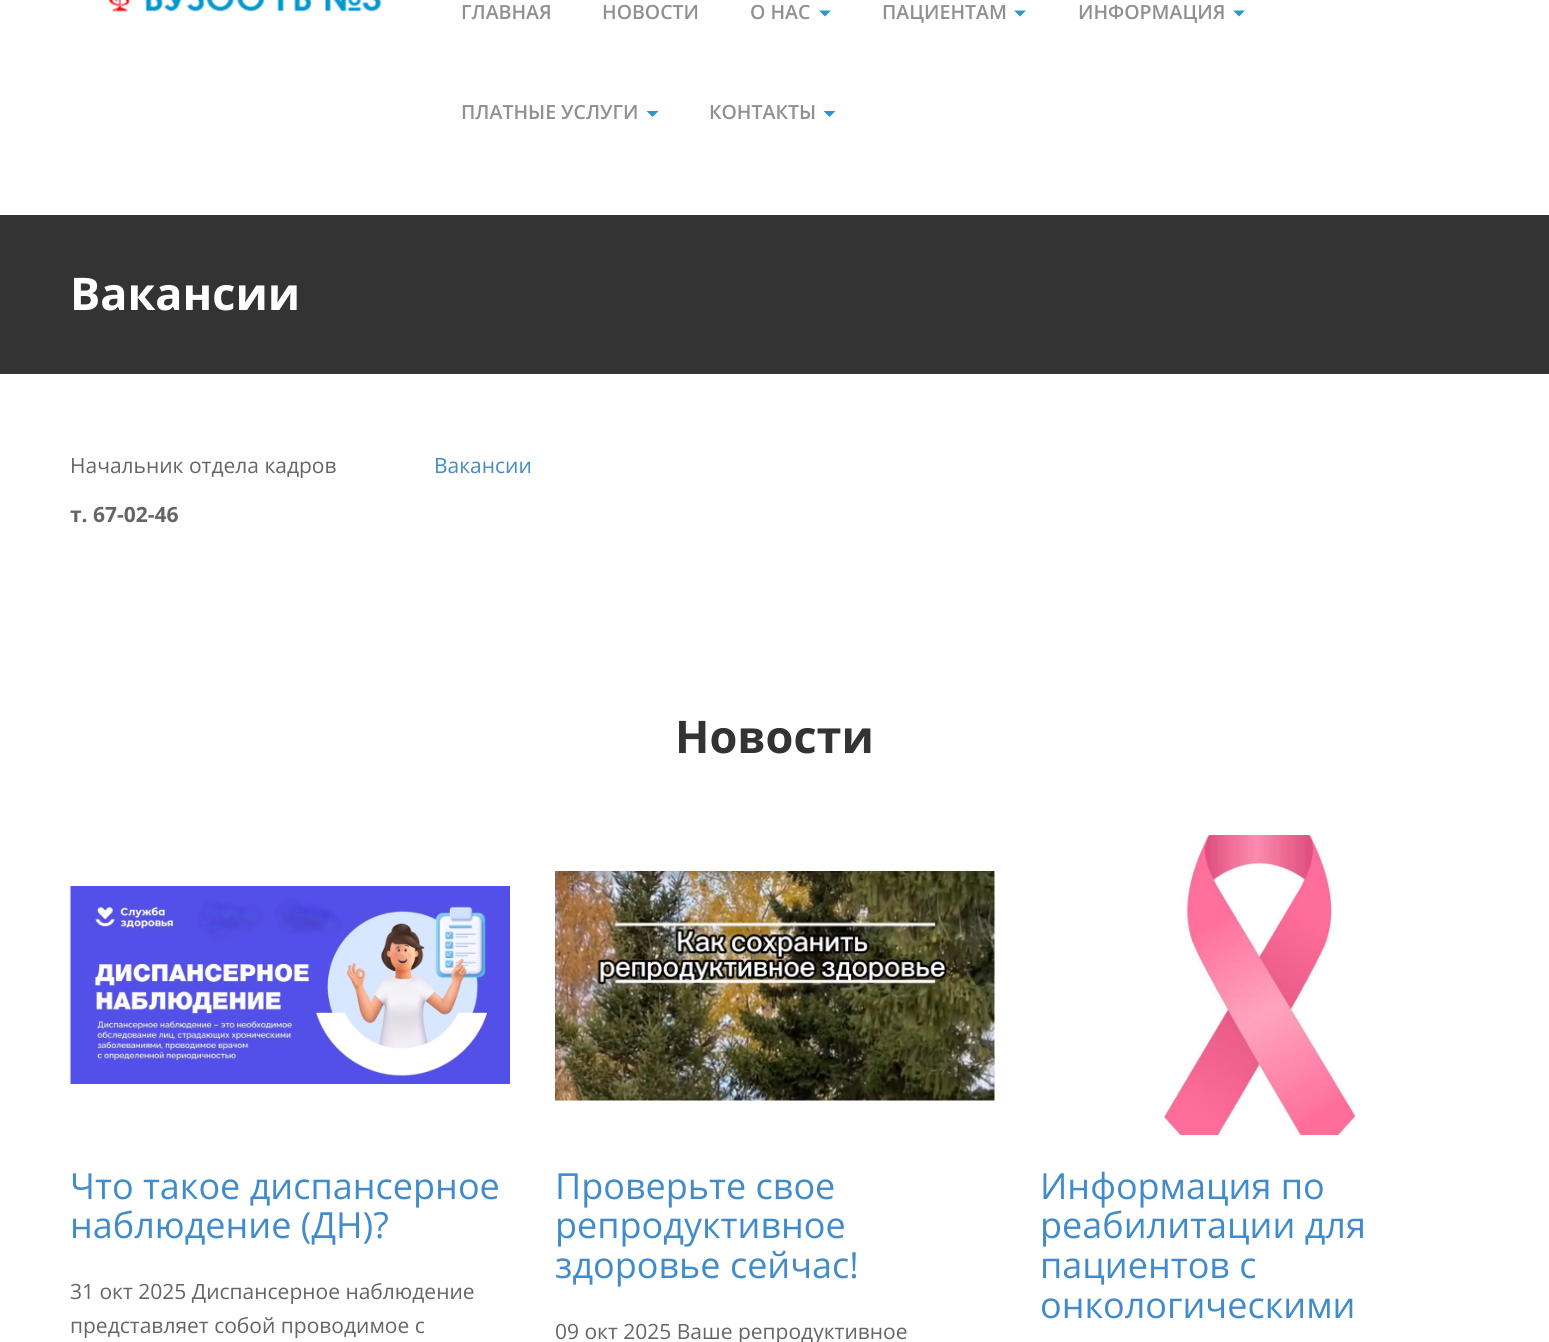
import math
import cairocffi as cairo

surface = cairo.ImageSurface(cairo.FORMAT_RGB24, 1549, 1342)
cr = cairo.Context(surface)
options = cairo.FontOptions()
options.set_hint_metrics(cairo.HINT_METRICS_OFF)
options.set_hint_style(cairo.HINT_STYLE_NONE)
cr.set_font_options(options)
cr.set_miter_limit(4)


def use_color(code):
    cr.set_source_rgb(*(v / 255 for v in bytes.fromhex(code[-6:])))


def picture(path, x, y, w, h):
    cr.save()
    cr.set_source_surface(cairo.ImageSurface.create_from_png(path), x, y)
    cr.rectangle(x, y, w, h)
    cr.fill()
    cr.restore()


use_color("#ffffff")
cr.paint()
picture("img1.png", 108, 0, 274, 13)
cr.select_font_face("Open Sans SemiBold")
cr.set_font_size(19.5)
use_color("#909090")
cr.move_to(461, 19)
cr.show_text("ГЛАВНАЯ")
cr.move_to(602, 19)
cr.show_text("НОВОСТИ")
cr.move_to(750, 19)
cr.show_text("О НАС")
use_color("#2b96cc")
cr.new_path()
cr.move_to(819, 10.5)
cr.line_to(831, 10.5)
cr.line_to(825, 16.5)
cr.close_path()
cr.fill()
use_color("#909090")
cr.move_to(882, 19)
cr.show_text("ПАЦИЕНТАМ")
use_color("#2b96cc")
cr.new_path()
cr.move_to(1014, 10.5)
cr.line_to(1026, 10.5)
cr.line_to(1020, 16.5)
cr.close_path()
cr.fill()
use_color("#909090")
cr.move_to(1078, 19)
cr.show_text("ИНФОРМАЦИЯ")
use_color("#2b96cc")
cr.new_path()
cr.move_to(1233, 10.5)
cr.line_to(1245, 10.5)
cr.line_to(1239, 16.5)
cr.close_path()
cr.fill()
use_color("#909090")
cr.move_to(461, 119)
cr.show_text("ПЛАТНЫЕ УСЛУГИ")
use_color("#2b96cc")
cr.new_path()
cr.move_to(646.5, 111)
cr.line_to(658.5, 111)
cr.line_to(652.5, 117)
cr.close_path()
cr.fill()
use_color("#909090")
cr.move_to(709, 119)
cr.show_text("КОНТАКТЫ")
use_color("#2b96cc")
cr.new_path()
cr.move_to(823.5, 111)
cr.line_to(835.5, 111)
cr.line_to(829.5, 117)
cr.close_path()
cr.fill()
use_color("#333333")
cr.rectangle(0, 215, 1549, 159)
cr.fill()
cr.select_font_face("Open Sans", cairo.FONT_SLANT_NORMAL, cairo.FONT_WEIGHT_BOLD)
cr.set_font_size(45)
use_color("#ffffff")
cr.move_to(70, 310)
cr.show_text("Вакансии")
cr.select_font_face("Open Sans")
cr.set_font_size(21)
use_color("#656565")
cr.move_to(70, 473)
cr.show_text("Начальник отдела кадров")
cr.select_font_face("Open Sans", cairo.FONT_SLANT_NORMAL, cairo.FONT_WEIGHT_BOLD)
cr.move_to(70, 522)
cr.show_text("т. 67-02-46")
cr.select_font_face("Open Sans")
use_color("#428bca")
cr.move_to(434, 473)
cr.show_text("Вакансии")
cr.select_font_face("Open Sans", cairo.FONT_SLANT_NORMAL, cairo.FONT_WEIGHT_BOLD)
cr.set_font_size(45)
use_color("#333333")
cr.move_to(675, 753)
cr.show_text("Новости")
picture("img2.png", 70, 886, 440, 198)
cr.select_font_face("Open Sans")
cr.set_font_size(36)
use_color("#428bca")
cr.move_to(70, 1199)
cr.show_text("Что такое диспансерное")
cr.move_to(70, 1238)
cr.show_text("наблюдение (ДН)?")
cr.set_font_size(21)
use_color("#656565")
cr.move_to(70, 1299)
cr.show_text("31 окт 2025 Диспансерное наблюдение")
cr.move_to(70, 1333)
cr.show_text("представляет собой проводимое с")
picture("img3.png", 555, 871, 440, 230)
cr.set_font_size(36)
use_color("#428bca")
cr.move_to(555, 1199)
cr.show_text("Проверьте свое")
cr.move_to(555, 1238)
cr.show_text("репродуктивное")
cr.move_to(555, 1278)
cr.show_text("здоровье сейчас!")
cr.set_font_size(21)
use_color("#656565")
cr.move_to(555, 1339)
cr.show_text("09 окт 2025 Ваше репродуктивное")
picture("img4.png", 1161, 835, 195, 300)
cr.set_font_size(36)
use_color("#428bca")
cr.move_to(1040, 1199)
cr.show_text("Информация по")
cr.move_to(1040, 1238)
cr.show_text("реабилитации для")
cr.move_to(1040, 1278)
cr.show_text("пациентов с")
cr.move_to(1040, 1318)
cr.show_text("онкологическими")
surface.write_to_png("result.png")
